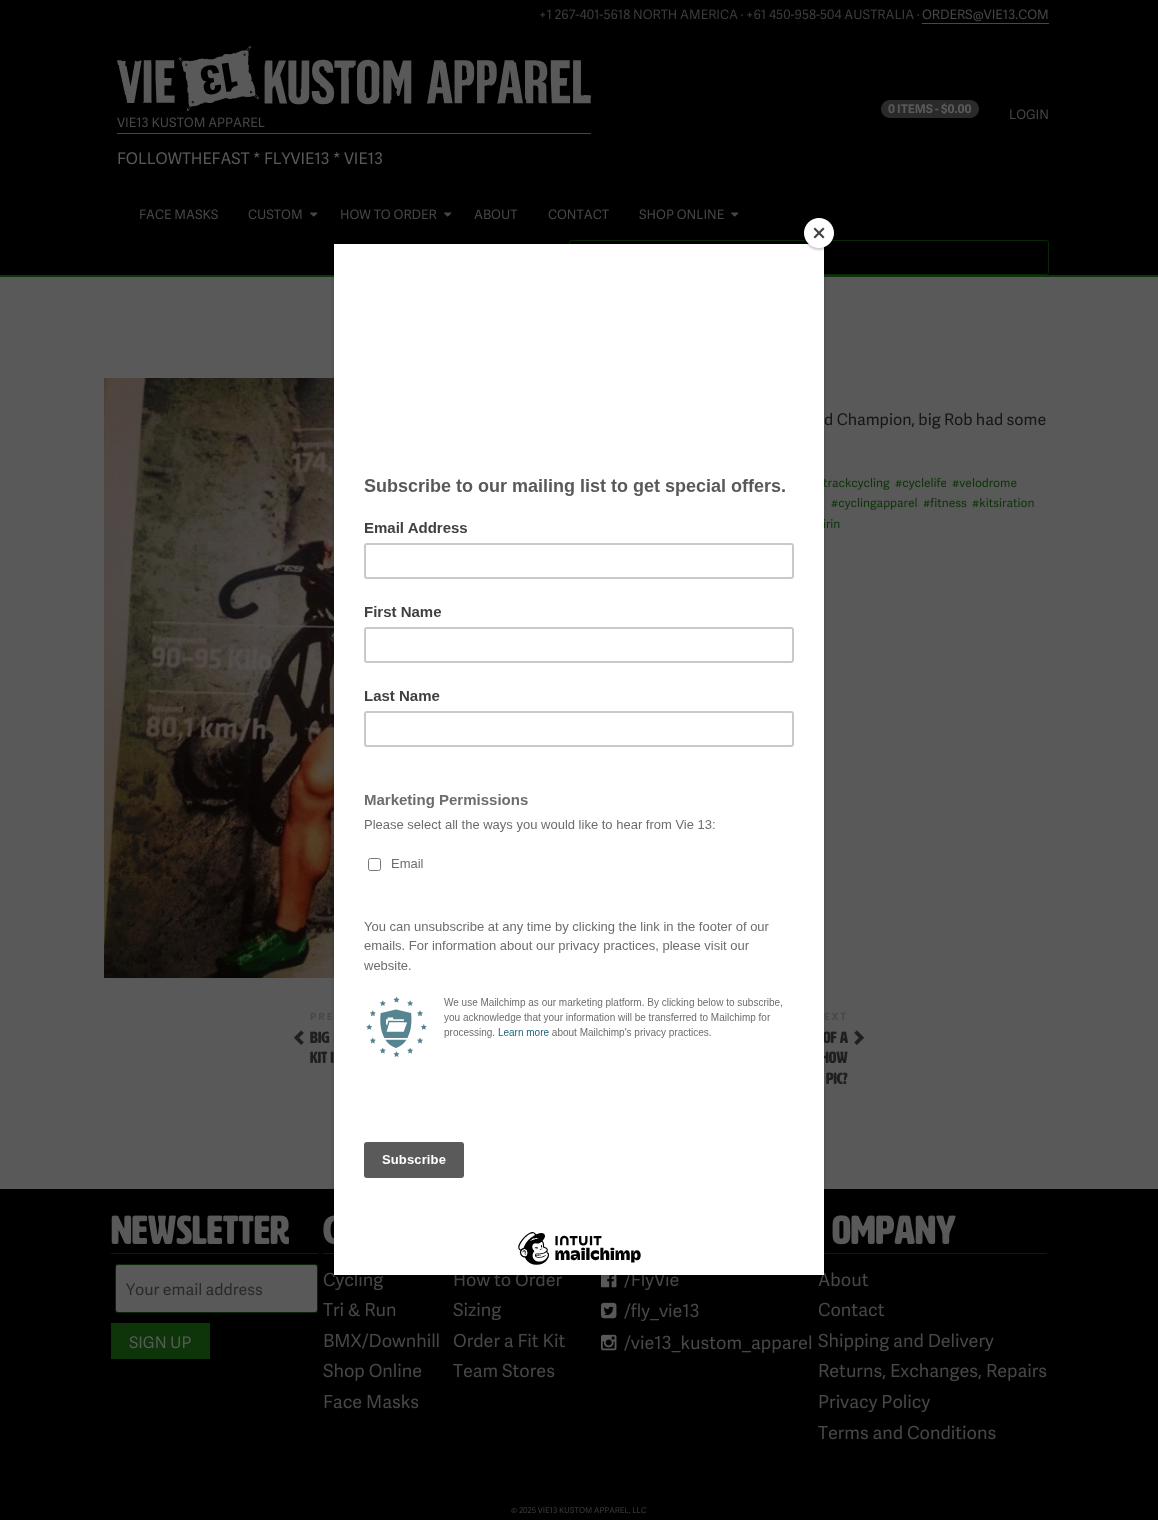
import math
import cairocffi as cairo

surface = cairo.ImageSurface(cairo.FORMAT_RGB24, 1158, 1520)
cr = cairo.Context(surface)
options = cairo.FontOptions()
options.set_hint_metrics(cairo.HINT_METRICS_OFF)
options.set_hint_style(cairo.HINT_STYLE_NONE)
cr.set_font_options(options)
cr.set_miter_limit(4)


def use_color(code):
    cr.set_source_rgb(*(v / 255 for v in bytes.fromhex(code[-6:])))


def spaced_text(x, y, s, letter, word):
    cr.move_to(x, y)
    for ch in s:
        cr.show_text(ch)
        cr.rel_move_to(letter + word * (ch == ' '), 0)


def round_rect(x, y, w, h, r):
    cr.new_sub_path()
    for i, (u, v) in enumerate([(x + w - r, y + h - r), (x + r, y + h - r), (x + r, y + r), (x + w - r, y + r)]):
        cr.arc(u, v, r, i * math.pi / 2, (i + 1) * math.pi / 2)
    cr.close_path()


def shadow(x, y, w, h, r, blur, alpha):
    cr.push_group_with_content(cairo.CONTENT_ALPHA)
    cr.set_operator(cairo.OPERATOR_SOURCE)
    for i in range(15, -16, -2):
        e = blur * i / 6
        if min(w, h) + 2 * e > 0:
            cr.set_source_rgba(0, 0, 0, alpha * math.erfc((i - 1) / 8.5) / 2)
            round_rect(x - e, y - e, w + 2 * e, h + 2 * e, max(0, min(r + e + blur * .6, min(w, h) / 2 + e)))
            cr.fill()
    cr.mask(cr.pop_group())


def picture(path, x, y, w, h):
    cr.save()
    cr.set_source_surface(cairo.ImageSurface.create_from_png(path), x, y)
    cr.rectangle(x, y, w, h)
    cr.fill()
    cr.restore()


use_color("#595959")
cr.paint()
use_color("#000000")
cr.rectangle(0, 0, 1158, 275)
cr.fill()
use_color("#0d3509")
cr.rectangle(0, 275, 1158, 2)
cr.fill()
cr.select_font_face("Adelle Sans")
cr.set_font_size(13)
use_color("#3c3c3c")
cr.move_to(539, 19)
cr.show_text("+1 267-401-5618 NORTH AMERICA · +61 450-958-504 AUSTRALIA ·")
use_color("#474747")
cr.move_to(922, 19)
cr.show_text("ORDERS@VIE13.COM")
cr.rectangle(922, 23, 127, 1)
cr.fill()
use_color("#2a2a2a")
round_rect(881, 100, 98, 18, 9)
cr.fill()
cr.select_font_face("Adelle Sans", cairo.FONT_SLANT_NORMAL, cairo.FONT_WEIGHT_BOLD)
cr.set_font_size(12)
use_color("#595959")
cr.move_to(888, 113)
cr.show_text("0 ITEMS - $0.00")
cr.select_font_face("Adelle Sans")
cr.set_font_size(13)
use_color("#474747")
cr.move_to(1009, 119)
cr.show_text("LOGIN")
picture("img1.png", 117, 46, 474, 65)
cr.rectangle(117, 133, 474, 1)
cr.fill()
cr.move_to(117, 127)
cr.show_text("VIE13 KUSTOM APPAREL")
cr.set_font_size(16)
use_color("#595959")
cr.move_to(117, 164)
cr.show_text("FOLLOWTHEFAST * FLYVIE13 * VIE13")
cr.set_font_size(13)
use_color("#474747")
cr.move_to(139, 219)
cr.show_text("FACE MASKS")
cr.move_to(248, 219)
cr.show_text("CUSTOM")
picture("img2.png", 310, 212, 8, 5)
cr.move_to(340, 219)
cr.show_text("HOW TO ORDER")
picture("img2.png", 444, 212, 8, 5)
cr.move_to(474, 219)
cr.show_text("ABOUT")
cr.move_to(548, 219)
cr.show_text("CONTACT")
cr.move_to(639, 219)
cr.show_text("SHOP ONLINE")
picture("img2.png", 731, 212, 8, 5)
round_rect(569.5, 240.5, 479, 34, 2.5)
use_color("#092506")
cr.set_line_width(1)
cr.stroke()
picture("img3.png", 104, 378, 230, 600)
cr.set_font_size(16)
use_color("#161616")
cr.move_to(824, 425)
cr.show_text("d Champion, big Rob had some")
cr.set_font_size(12)
use_color("#0d3509")
cr.move_to(823, 487)
cr.show_text("trackcycling")
cr.move_to(895, 487)
cr.show_text("#cyclelife")
cr.move_to(952, 487)
cr.show_text("#velodrome")
cr.move_to(831, 507)
cr.show_text("#cyclingapparel")
cr.move_to(923, 507)
cr.show_text("#fitness")
cr.move_to(972, 507)
cr.show_text("#kitsiration")
cr.move_to(823, 528)
cr.show_text("irin")
cr.select_font_face("Adelle Sans", cairo.FONT_SLANT_NORMAL, cairo.FONT_WEIGHT_BOLD)
cr.set_font_size(10)
use_color("#474747")
spaced_text(310, 1020, "PRE", 2, 0)
picture("img4.png", 293, 1030, 11, 15)
cr.select_font_face("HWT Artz", cairo.FONT_SLANT_NORMAL, cairo.FONT_WEIGHT_BOLD)
cr.set_font_size(16)
use_color("#1f1f1f")
cr.move_to(310, 1043)
cr.show_text("BIG")
cr.move_to(310, 1063)
cr.show_text("KIT I")
cr.select_font_face("Adelle Sans", cairo.FONT_SLANT_NORMAL, cairo.FONT_WEIGHT_BOLD)
cr.set_font_size(10)
use_color("#474747")
spaced_text(824, 1020, "EXT", 2, 0)
cr.select_font_face("HWT Artz", cairo.FONT_SLANT_NORMAL, cairo.FONT_WEIGHT_BOLD)
cr.set_font_size(16)
use_color("#1f1f1f")
cr.move_to(823, 1043)
cr.show_text("OF A")
picture("img5.png", 854, 1030, 11, 15)
cr.move_to(821, 1063)
cr.show_text("HOW")
cr.move_to(826, 1084)
cr.show_text("PIC?")
use_color("#000000")
cr.rectangle(0, 1189, 1158, 331)
cr.fill()
use_color("#161616")
cr.rectangle(111, 1253, 207, 1)
cr.fill()
cr.set_font_size(40)
use_color("#595959")
cr.move_to(111, 1244)
cr.show_text("NEWSLETTER")
round_rect(115.5, 1264.5, 202, 48, 2.5)
cr.fill_preserve()
use_color("#092506")
cr.stroke()
cr.select_font_face("Adelle Sans")
cr.set_font_size(16)
use_color("#292929")
cr.move_to(126, 1295)
cr.show_text("Your email address")
use_color("#0d3509")
cr.rectangle(111, 1323, 99, 36)
cr.fill()
use_color("#595959")
cr.move_to(129, 1348)
cr.show_text("SIGN UP")
use_color("#161616")
cr.rectangle(323, 1253, 11, 1)
cr.fill()
cr.select_font_face("HWT Artz", cairo.FONT_SLANT_NORMAL, cairo.FONT_WEIGHT_BOLD)
cr.set_font_size(40)
use_color("#595959")
cr.move_to(323, 1244)
cr.show_text("C")
cr.select_font_face("Adelle Sans")
cr.set_font_size(18)
use_color("#474747")
cr.move_to(323, 1286)
cr.show_text("Cycling")
cr.move_to(323, 1316)
cr.show_text("Tri & Run")
cr.move_to(323, 1347)
cr.show_text("BMX/Downhill")
cr.move_to(323, 1377)
cr.show_text("Shop Online")
cr.move_to(323, 1408)
cr.show_text("Face Masks")
cr.move_to(453, 1286)
cr.show_text("How to Order")
cr.move_to(453, 1316)
cr.show_text("Sizing")
cr.move_to(453, 1347)
cr.show_text("Order a Fit Kit")
cr.move_to(453, 1377)
cr.show_text("Team Stores")
picture("img6.png", 601, 1275, 16, 13)
cr.move_to(624, 1286)
cr.show_text("/FlyVie")
picture("img7.png", 601, 1302, 16, 17)
cr.move_to(624, 1317)
cr.show_text("/fly_vie13")
picture("img8.png", 601, 1334, 16, 17)
cr.move_to(624, 1349)
cr.show_text("/vie13_kustom_apparel")
use_color("#161616")
cr.rectangle(818, 1253, 229, 1)
cr.fill()
cr.select_font_face("HWT Artz", cairo.FONT_SLANT_NORMAL, cairo.FONT_WEIGHT_BOLD)
cr.set_font_size(40)
use_color("#595959")
cr.move_to(832, 1244)
cr.show_text("OMPANY")
cr.select_font_face("Adelle Sans")
cr.set_font_size(18)
use_color("#474747")
cr.move_to(818, 1286)
cr.show_text("About")
cr.move_to(818, 1316)
cr.show_text("Contact")
cr.move_to(818, 1347)
cr.show_text("Shipping and Delivery")
cr.move_to(818, 1377)
cr.show_text("Returns, Exchanges, Repairs")
cr.move_to(818, 1408)
cr.show_text("Privacy Policy")
cr.move_to(818, 1439)
cr.show_text("Terms and Conditions")
cr.set_font_size(8)
use_color("#3c3c3c")
cr.move_to(511, 1513)
cr.show_text("© 2025 VIE13 KUSTOM APPAREL, LLC")
cr.save()
cr.set_fill_rule(cairo.FILL_RULE_EVEN_ODD)
cr.new_path()
cr.move_to(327, 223)
cr.line_to(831, 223)
cr.line_to(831, 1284)
cr.line_to(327, 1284)
cr.close_path()
cr.move_to(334, 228)
cr.line_to(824, 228)
cr.line_to(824, 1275)
cr.line_to(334, 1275)
cr.close_path()
cr.clip()
use_color("#000000")
shadow(334, 230, 490, 1047, 0, 2, 0.2)
cr.restore()
picture("img9.png", 334, 244, 490, 1031)
use_color("#000000")
shadow(804, 220, 30, 30, 15, 1, 0.2)
use_color("#ffffff")
cr.arc(819, 233, 15, 0, 2 * math.pi)
cr.fill()
use_color("#414141")
cr.new_path()
cr.move_to(823, 227.5)
cr.line_to(824.5, 229)
cr.line_to(815, 238.5)
cr.line_to(813.5, 237)
cr.close_path()
cr.fill()
cr.new_path()
cr.move_to(813.5, 229)
cr.line_to(815, 227.5)
cr.line_to(824.5, 237)
cr.line_to(823, 238.5)
cr.close_path()
cr.fill()
surface.write_to_png("result.png")
